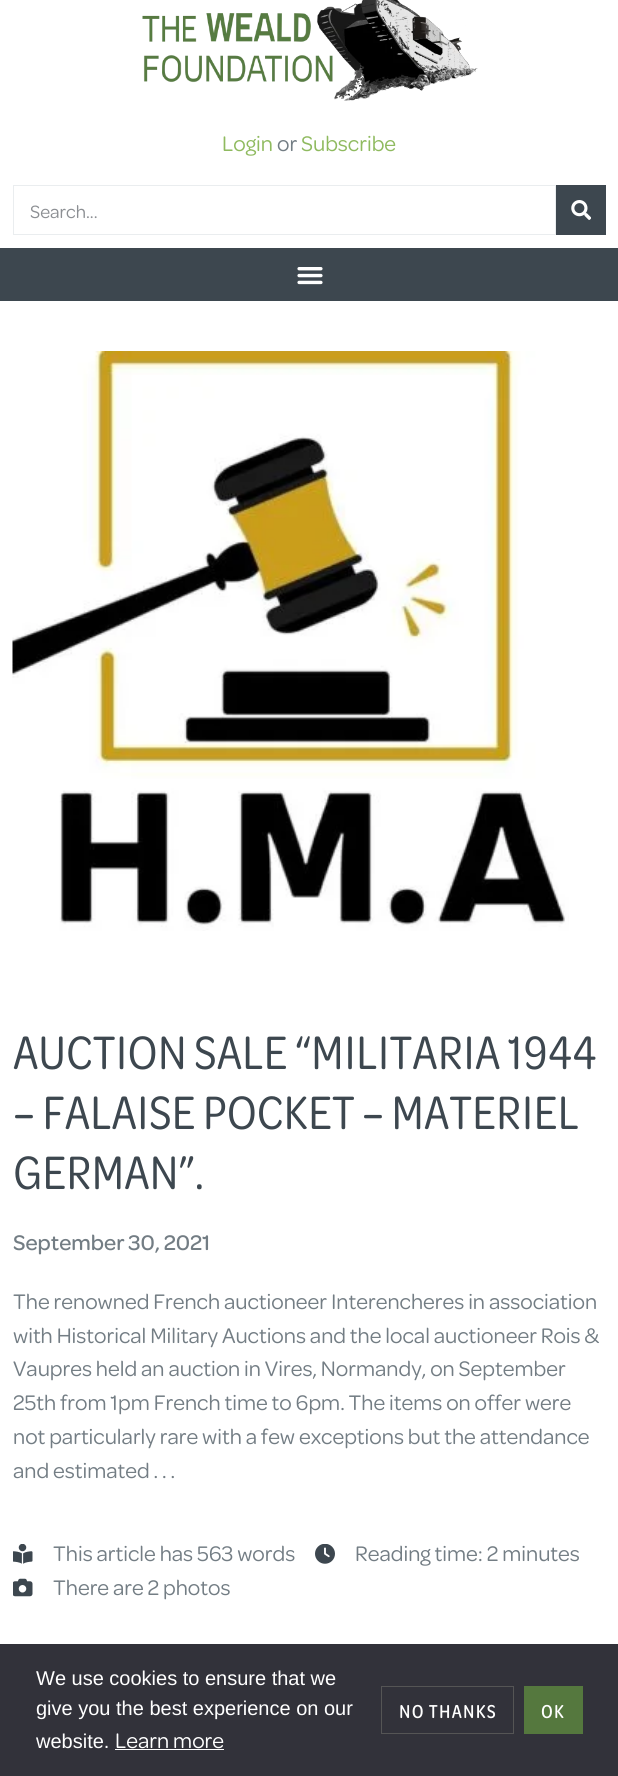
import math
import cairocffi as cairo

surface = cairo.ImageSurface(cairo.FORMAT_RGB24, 618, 1776)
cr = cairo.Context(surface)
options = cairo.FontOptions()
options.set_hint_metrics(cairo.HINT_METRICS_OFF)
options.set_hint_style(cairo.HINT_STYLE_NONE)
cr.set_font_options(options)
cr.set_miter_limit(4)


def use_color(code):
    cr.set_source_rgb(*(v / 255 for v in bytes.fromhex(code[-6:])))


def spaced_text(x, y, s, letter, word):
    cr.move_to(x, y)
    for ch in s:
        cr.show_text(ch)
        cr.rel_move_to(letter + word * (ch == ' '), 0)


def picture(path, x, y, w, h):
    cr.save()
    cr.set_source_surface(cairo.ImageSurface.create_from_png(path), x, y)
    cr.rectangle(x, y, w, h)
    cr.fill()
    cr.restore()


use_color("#ffffff")
cr.paint()
picture("img1.png", 142, 0, 336, 101)
cr.select_font_face("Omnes")
cr.set_font_size(22.5)
use_color("#8fba5f")
cr.move_to(222, 151)
cr.show_text("Login")
use_color("#737d84")
cr.move_to(277, 151)
cr.show_text("or")
use_color("#8fba5f")
cr.move_to(301, 151)
cr.show_text("Subscribe")
cr.rectangle(13.5, 185.5, 542, 49)
use_color("#eaedef")
cr.set_line_width(1)
cr.stroke()
cr.set_font_size(19)
use_color("#8c8f93")
cr.move_to(30, 218)
cr.show_text("Search...")
use_color("#3d474f")
cr.rectangle(556, 185, 50, 50)
cr.fill()
picture("img2.png", 571, 200, 20, 20)
cr.rectangle(0, 248, 618, 53)
cr.fill()
picture("img3.png", 297, 267, 26, 18)
picture("img4.png", 12, 351, 557, 580)
cr.select_font_face("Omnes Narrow")
cr.set_font_size(50)
cr.move_to(13, 1069)
cr.show_text("AUCTION SALE “MILITARIA 1944")
cr.move_to(13, 1129)
cr.show_text("– FALAISE POCKET – MATERIEL")
cr.move_to(13, 1189)
cr.show_text("GERMAN”.")
cr.select_font_face("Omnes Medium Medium")
cr.set_font_size(22.5)
use_color("#737d84")
cr.move_to(13, 1250)
cr.show_text("September 30, 2021")
cr.select_font_face("Omnes")
cr.move_to(13, 1309)
cr.show_text("The renowned French auctioneer Interencheres in association")
cr.move_to(13, 1343)
cr.show_text("with Historical Military Auctions and the local auctioneer Rois &")
cr.move_to(13, 1376)
cr.show_text("Vaupres held an auction in Vires, Normandy, on September")
cr.move_to(13, 1410)
cr.show_text("25th from 1pm French time to 6pm. The items on offer were")
cr.move_to(13, 1444)
cr.show_text("not particularly rare with a few exceptions but the attendance")
cr.move_to(13, 1478)
cr.show_text("and estimated . . .")
picture("img5.png", 13, 1544, 20, 20)
cr.move_to(53, 1561)
cr.show_text("This article has 563 words")
picture("img6.png", 315, 1544, 20, 20)
cr.move_to(355, 1561)
cr.show_text("Reading time: 2 minutes")
picture("img7.png", 13, 1578, 20, 19)
cr.move_to(53, 1595)
cr.show_text("There are 2 photos")
use_color("#32323a")
cr.rectangle(0, 1644, 618, 132)
cr.fill()
cr.select_font_face("Liberation Sans")
cr.set_font_size(20)
use_color("#ffffff")
cr.move_to(36, 1685)
cr.show_text("We use cookies to ensure that we")
cr.move_to(36, 1715)
cr.show_text("give you the best experience on our")
cr.move_to(36, 1748)
cr.show_text("website.")
cr.select_font_face("Omnes")
cr.set_font_size(22.5)
cr.move_to(115, 1748)
cr.show_text("Learn more")
cr.rectangle(115, 1749, 109, 1)
cr.fill()
cr.rectangle(381.5, 1686.5, 132, 47)
use_color("#555555")
cr.stroke()
cr.select_font_face("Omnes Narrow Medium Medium")
cr.set_font_size(20)
use_color("#ffffff")
spaced_text(399, 1718, "NO THANKS", 1.25, 0)
use_color("#55783e")
cr.rectangle(524, 1686, 59, 48)
cr.fill()
use_color("#ffffff")
spaced_text(541, 1718, "OK", 1.25, 0)
surface.write_to_png("result.png")
